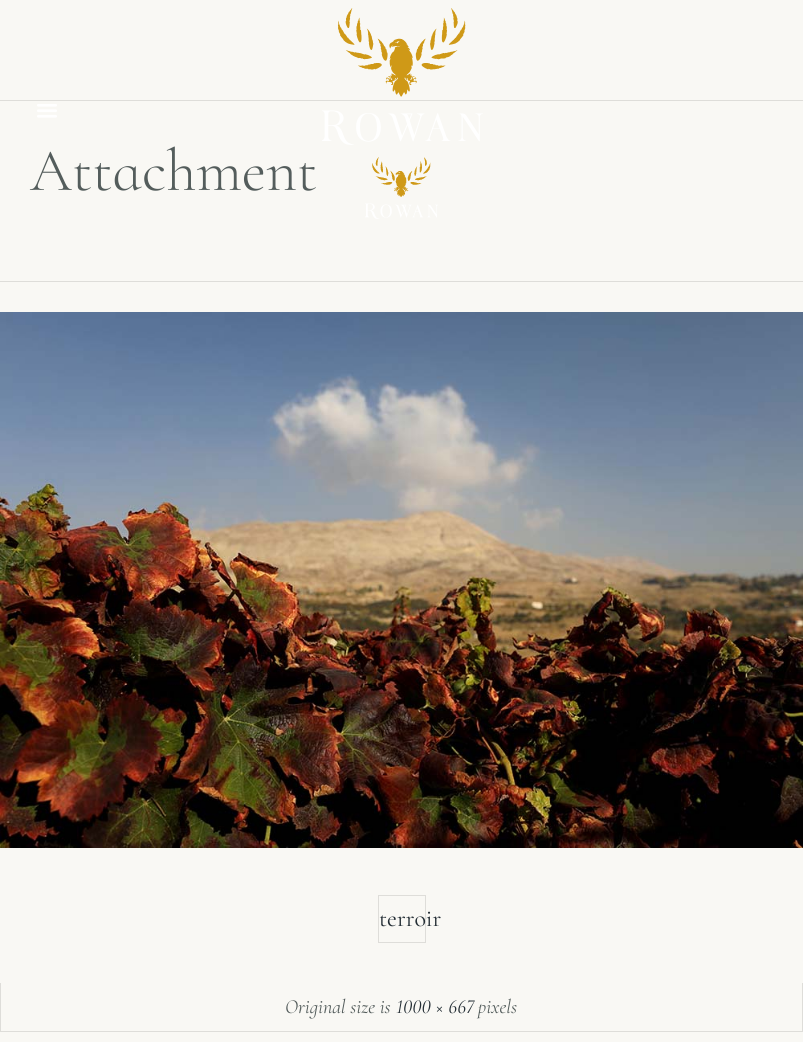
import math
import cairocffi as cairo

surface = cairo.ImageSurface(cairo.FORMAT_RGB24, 803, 1042)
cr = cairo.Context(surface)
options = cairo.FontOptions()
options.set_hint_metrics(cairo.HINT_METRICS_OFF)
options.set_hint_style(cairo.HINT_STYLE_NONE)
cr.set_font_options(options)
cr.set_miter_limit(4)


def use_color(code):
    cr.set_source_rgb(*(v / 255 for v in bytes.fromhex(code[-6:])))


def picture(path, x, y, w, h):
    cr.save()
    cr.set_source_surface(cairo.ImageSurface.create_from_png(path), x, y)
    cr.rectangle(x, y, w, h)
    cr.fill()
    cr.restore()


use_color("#f9f8f4")
cr.paint()
picture("img1.png", 37, 104, 20, 14)
use_color("#deddd9")
cr.rectangle(0, 100, 803, 1)
cr.fill()
picture("img2.png", 322, 8, 161, 137)
picture("img3.png", 365, 157, 73, 62)
cr.rectangle(0, 281, 803, 1)
cr.fill()
cr.select_font_face("Cormorant Infant Light")
cr.set_font_size(60)
use_color("#545d5c")
cr.move_to(30, 190)
cr.show_text("Attachment")
picture("img4.png", 0, 312, 803, 536)
cr.rectangle(378.5, 895.5, 47, 47)
use_color("#deddd9")
cr.set_line_width(1)
cr.stroke()
cr.select_font_face("Cormorant Infant")
cr.set_font_size(24)
use_color("#242e35")
cr.move_to(379, 926)
cr.show_text("terroir")
use_color("#deddd9")
cr.rectangle(802, 983, 1, 49)
cr.fill()
cr.rectangle(0, 1031, 803, 1)
cr.fill()
cr.rectangle(0, 983, 1, 49)
cr.fill()
cr.select_font_face("Cormorant Infant", cairo.FONT_SLANT_ITALIC)
cr.set_font_size(20)
use_color("#545d5c")
cr.move_to(285, 1013)
cr.show_text("Original size is")
use_color("#242e35")
cr.move_to(396, 1013)
cr.show_text("1000 × 667")
use_color("#545d5c")
cr.move_to(478, 1013)
cr.show_text("pixels")
surface.write_to_png("result.png")
